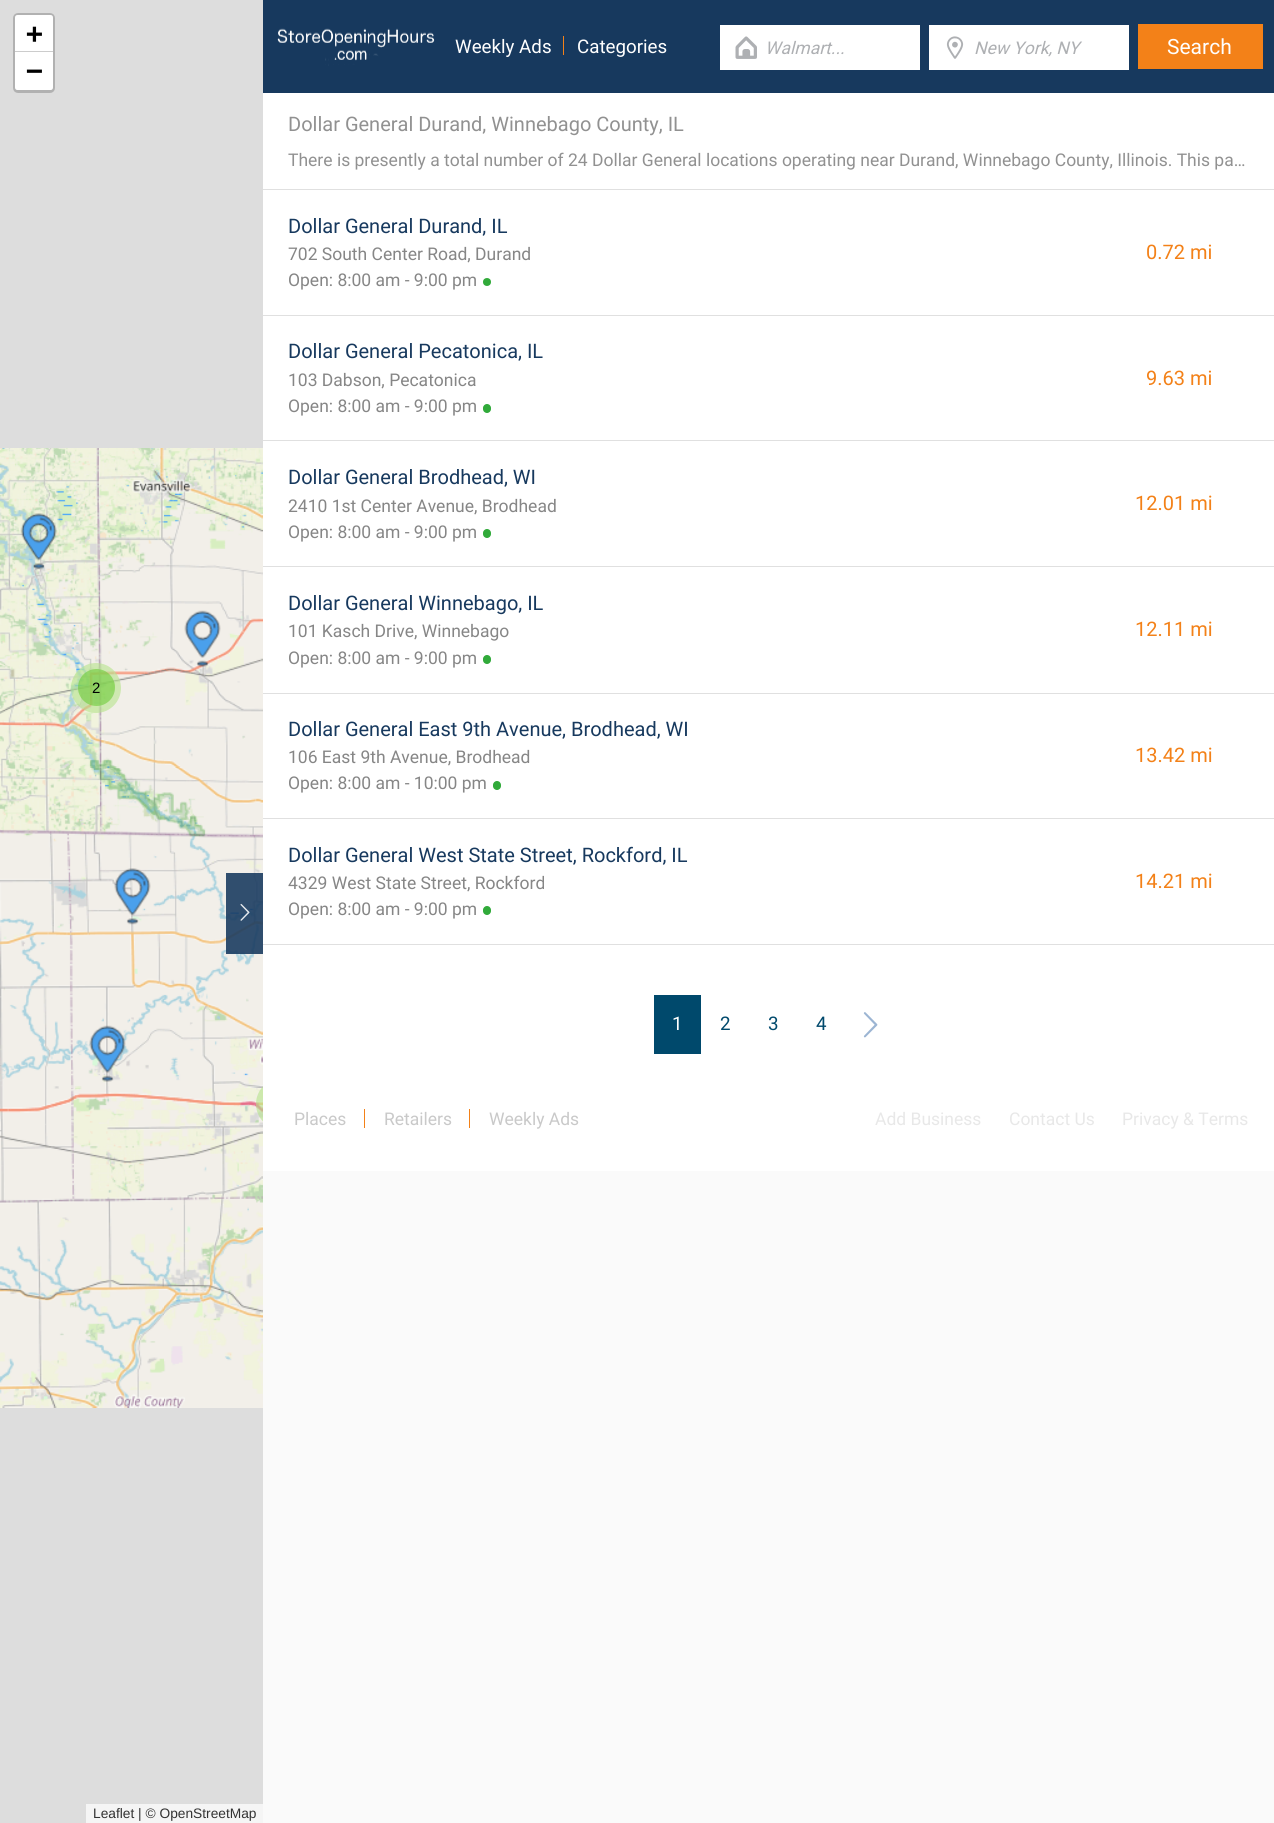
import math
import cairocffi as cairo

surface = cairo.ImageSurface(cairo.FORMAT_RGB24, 1274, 1823)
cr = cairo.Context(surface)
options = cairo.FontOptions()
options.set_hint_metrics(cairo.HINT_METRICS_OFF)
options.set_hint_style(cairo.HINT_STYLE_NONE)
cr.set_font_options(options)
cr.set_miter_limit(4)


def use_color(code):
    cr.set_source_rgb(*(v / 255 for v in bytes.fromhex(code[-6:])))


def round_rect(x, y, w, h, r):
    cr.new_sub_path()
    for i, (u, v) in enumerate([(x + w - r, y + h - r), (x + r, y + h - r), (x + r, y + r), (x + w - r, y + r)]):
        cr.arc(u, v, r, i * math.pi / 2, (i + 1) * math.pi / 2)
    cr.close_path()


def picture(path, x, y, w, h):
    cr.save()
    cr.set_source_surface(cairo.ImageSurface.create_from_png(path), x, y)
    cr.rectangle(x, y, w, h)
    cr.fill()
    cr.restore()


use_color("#fafafa")
cr.paint()
use_color("#dddddd")
cr.rectangle(0, 0, 263, 1823)
cr.fill()
round_rect(14.5, 14.5, 39, 77, 3.5)
use_color("#b1b1b1")
cr.set_line_width(3)
cr.stroke()
use_color("#ffffff")
cr.new_path()
cr.move_to(17.5, 15)
cr.line_to(50.5, 15)
cr.curve_to(52, 15, 53, 16, 53, 17.5)
cr.line_to(53, 53)
cr.line_to(15, 53)
cr.line_to(15, 17.5)
cr.curve_to(15, 16, 16, 15, 17.5, 15)
cr.close_path()
cr.fill()
use_color("#cccccc")
cr.rectangle(15, 51, 38, 1)
cr.fill()
cr.select_font_face("DejaVu Sans Mono", cairo.FONT_SLANT_NORMAL, cairo.FONT_WEIGHT_BOLD)
cr.set_font_size(28)
use_color("#000000")
cr.move_to(26, 43)
cr.show_text("+")
use_color("#ffffff")
cr.new_path()
cr.move_to(15, 53)
cr.line_to(53, 53)
cr.line_to(53, 87.5)
cr.curve_to(53, 89, 52, 90, 50.5, 90)
cr.line_to(17.5, 90)
cr.curve_to(16, 90, 15, 89, 15, 87.5)
cr.close_path()
cr.fill()
use_color("#000000")
cr.move_to(26, 80)
cr.show_text("−")
use_color("#f5f5f5")
cr.rectangle(86, 1804, 177, 19)
cr.fill()
cr.select_font_face("Liberation Sans")
cr.set_font_size(13.75)
use_color("#333333")
cr.move_to(93, 1818)
cr.show_text("Leaflet | © OpenStreetMap")
picture("img1.png", 0, 448, 164, 320)
picture("img2.png", 164, 448, 99, 320)
picture("img3.png", 0, 768, 164, 320)
picture("img4.png", 164, 768, 99, 320)
picture("img5.png", 0, 1088, 164, 320)
picture("img6.png", 164, 1088, 99, 320)
picture("img7.png", 20, 513, 37, 57)
picture("img8.png", 184, 610, 37, 57)
cr.set_source_rgba(0.71, 0.886, 0.549, 0.6)
cr.arc(96, 688, 25, 0, 2 * math.pi)
cr.fill()
cr.set_source_rgba(0.431, 0.8, 0.224, 0.6)
cr.arc(96.5, 687.5, 18.5, 0, 2 * math.pi)
cr.fill()
cr.set_font_size(15)
use_color("#000000")
cr.move_to(92, 693)
cr.show_text("2")
picture("img9.png", 114, 868, 37, 57)
picture("img10.png", 89, 1025, 37, 57)
cr.set_source_rgba(0.71, 0.886, 0.549, 0.6)
cr.new_path()
cr.move_to(281, 1079)
cr.line_to(263, 1079)
cr.line_to(263, 1129)
cr.line_to(281, 1129)
cr.curve_to(267, 1129, 256, 1118, 256, 1104)
cr.curve_to(256, 1090, 267, 1079, 281, 1079)
cr.close_path()
cr.fill()
use_color("#17395e")
cr.rectangle(263, 0, 1011, 93)
cr.fill()
picture("img11.png", 277, 28, 158, 38)
cr.select_font_face("Roboto")
cr.set_font_size(18.75)
use_color("#ffffff")
cr.move_to(455, 53)
cr.show_text("Weekly Ads")
use_color("#f38118")
cr.rectangle(563, 36, 1, 19)
cr.fill()
use_color("#ffffff")
cr.move_to(577, 53)
cr.show_text("Categories")
cr.rectangle(720, 25, 200, 45)
cr.fill()
picture("img12.png", 735, 36, 22, 23)
cr.select_font_face("Roboto", cairo.FONT_SLANT_ITALIC)
cr.set_font_size(17.5)
use_color("#aeb0b3")
cr.move_to(765, 54)
cr.show_text("Walmart...")
use_color("#ffffff")
cr.rectangle(929, 25, 200, 45)
cr.fill()
picture("img13.png", 946, 36, 18, 23)
use_color("#aeb0b3")
cr.move_to(974, 54)
cr.show_text("New York, NY")
use_color("#f38118")
cr.rectangle(1138, 24, 125, 45)
cr.fill()
cr.select_font_face("Roboto")
cr.set_font_size(21)
use_color("#ffffff")
cr.move_to(1167, 54)
cr.show_text("Search")
cr.rectangle(263, 93, 1011, 1078)
cr.fill()
cr.set_source_rgba(0.09, 0.224, 0.369, 0.88)
cr.rectangle(226, 873, 37, 81)
cr.fill()
picture("img14.png", 240, 903, 10, 18)
use_color("#e0e0e0")
cr.rectangle(263, 189, 1011, 1)
cr.fill()
cr.set_font_size(20)
use_color("#919191")
cr.move_to(288, 131)
cr.show_text("Dollar General Durand, Winnebago County, IL")
cr.set_font_size(17.5)
cr.move_to(288, 166)
cr.show_text("There is presently a total number of 24 Dollar General locations operating near Durand, Winnebago County, Illinois. This pa…")
use_color("#e0e0e0")
cr.rectangle(263, 315, 1011, 1)
cr.fill()
cr.set_font_size(20)
use_color("#17395e")
cr.move_to(288, 233)
cr.show_text("Dollar General Durand, IL")
cr.set_font_size(17.5)
use_color("#868686")
cr.move_to(288, 260)
cr.show_text("702 South Center Road, Durand")
cr.set_font_size(20)
use_color("#f38118")
cr.move_to(1146, 259)
cr.show_text("0.72 mi")
cr.set_font_size(17.5)
use_color("#868686")
cr.move_to(288, 286)
cr.show_text("Open: 8:00 am - 9:00 pm")
use_color("#31aa3a")
cr.new_path()
cr.arc(487, 282, 4, 0, 2 * math.pi)
cr.fill()
use_color("#e0e0e0")
cr.rectangle(263, 440, 1011, 1)
cr.fill()
cr.set_font_size(20)
use_color("#17395e")
cr.move_to(288, 358)
cr.show_text("Dollar General Pecatonica, IL")
cr.set_font_size(17.5)
use_color("#868686")
cr.move_to(288, 386)
cr.show_text("103 Dabson, Pecatonica")
cr.set_font_size(20)
use_color("#f38118")
cr.move_to(1146, 385)
cr.show_text("9.63 mi")
cr.set_font_size(17.5)
use_color("#868686")
cr.move_to(288, 412)
cr.show_text("Open: 8:00 am - 9:00 pm")
use_color("#31aa3a")
round_rect(483, 404, 8, 9, 4)
cr.fill()
use_color("#e0e0e0")
cr.rectangle(263, 566, 1011, 1)
cr.fill()
cr.set_font_size(20)
use_color("#17395e")
cr.move_to(288, 484)
cr.show_text("Dollar General Brodhead, WI")
cr.set_font_size(17.5)
use_color("#868686")
cr.move_to(288, 512)
cr.show_text("2410 1st Center Avenue, Brodhead")
cr.set_font_size(20)
use_color("#f38118")
cr.move_to(1135, 510)
cr.show_text("12.01 mi")
cr.set_font_size(17.5)
use_color("#868686")
cr.move_to(288, 538)
cr.show_text("Open: 8:00 am - 9:00 pm")
use_color("#31aa3a")
round_rect(483, 529, 8, 9, 4)
cr.fill()
use_color("#e0e0e0")
cr.rectangle(263, 693, 1011, 1)
cr.fill()
cr.set_font_size(20)
use_color("#17395e")
cr.move_to(288, 610)
cr.show_text("Dollar General Winnebago, IL")
cr.set_font_size(17.5)
use_color("#868686")
cr.move_to(288, 637)
cr.show_text("101 Kasch Drive, Winnebago")
cr.set_font_size(20)
use_color("#f38118")
cr.move_to(1135, 636)
cr.show_text("12.11 mi")
cr.set_font_size(17.5)
use_color("#868686")
cr.move_to(288, 664)
cr.show_text("Open: 8:00 am - 9:00 pm")
use_color("#31aa3a")
round_rect(483, 655, 8, 9, 4)
cr.fill()
use_color("#e0e0e0")
cr.rectangle(263, 818, 1011, 1)
cr.fill()
cr.set_font_size(20)
use_color("#17395e")
cr.move_to(288, 736)
cr.show_text("Dollar General East 9th Avenue, Brodhead, WI")
cr.set_font_size(17.5)
use_color("#868686")
cr.move_to(288, 763)
cr.show_text("106 East 9th Avenue, Brodhead")
cr.set_font_size(20)
use_color("#f38118")
cr.move_to(1135, 762)
cr.show_text("13.42 mi")
cr.set_font_size(17.5)
use_color("#868686")
cr.move_to(288, 789)
cr.show_text("Open: 8:00 am - 10:00 pm")
use_color("#31aa3a")
round_rect(493, 781, 8, 9, 4)
cr.fill()
use_color("#e0e0e0")
cr.rectangle(263, 944, 1011, 1)
cr.fill()
cr.set_font_size(20)
use_color("#17395e")
cr.move_to(288, 862)
cr.show_text("Dollar General West State Street, Rockford, IL")
cr.set_font_size(17.5)
use_color("#868686")
cr.move_to(288, 889)
cr.show_text("4329 West State Street, Rockford")
cr.set_font_size(20)
use_color("#f38118")
cr.move_to(1135, 888)
cr.show_text("14.21 mi")
cr.set_font_size(17.5)
use_color("#868686")
cr.move_to(288, 915)
cr.show_text("Open: 8:00 am - 9:00 pm")
use_color("#31aa3a")
round_rect(483, 906, 8, 9, 4)
cr.fill()
use_color("#00496c")
cr.rectangle(654, 995, 47, 59)
cr.fill()
cr.set_font_size(18.75)
use_color("#ffffff")
cr.move_to(672, 1030)
cr.show_text("1")
use_color("#00496c")
cr.move_to(720, 1030)
cr.show_text("2")
cr.move_to(768, 1030)
cr.show_text("3")
cr.move_to(816, 1030)
cr.show_text("4")
picture("img15.png", 863, 1012, 15, 26)
cr.set_font_size(17.5)
use_color("#c9c9c9")
cr.move_to(294, 1125)
cr.show_text("Places")
use_color("#f38118")
cr.rectangle(364, 1109, 1, 19)
cr.fill()
use_color("#c9c9c9")
cr.move_to(384, 1125)
cr.show_text("Retailers")
use_color("#f38118")
cr.rectangle(469, 1109, 1, 19)
cr.fill()
use_color("#c9c9c9")
cr.move_to(489, 1125)
cr.show_text("Weekly Ads")
use_color("#e8e8e8")
cr.move_to(875, 1125)
cr.show_text("Add Business")
cr.move_to(1009, 1125)
cr.show_text("Contact Us")
cr.move_to(1122, 1125)
cr.show_text("Privacy & Terms")
surface.write_to_png("result.png")
